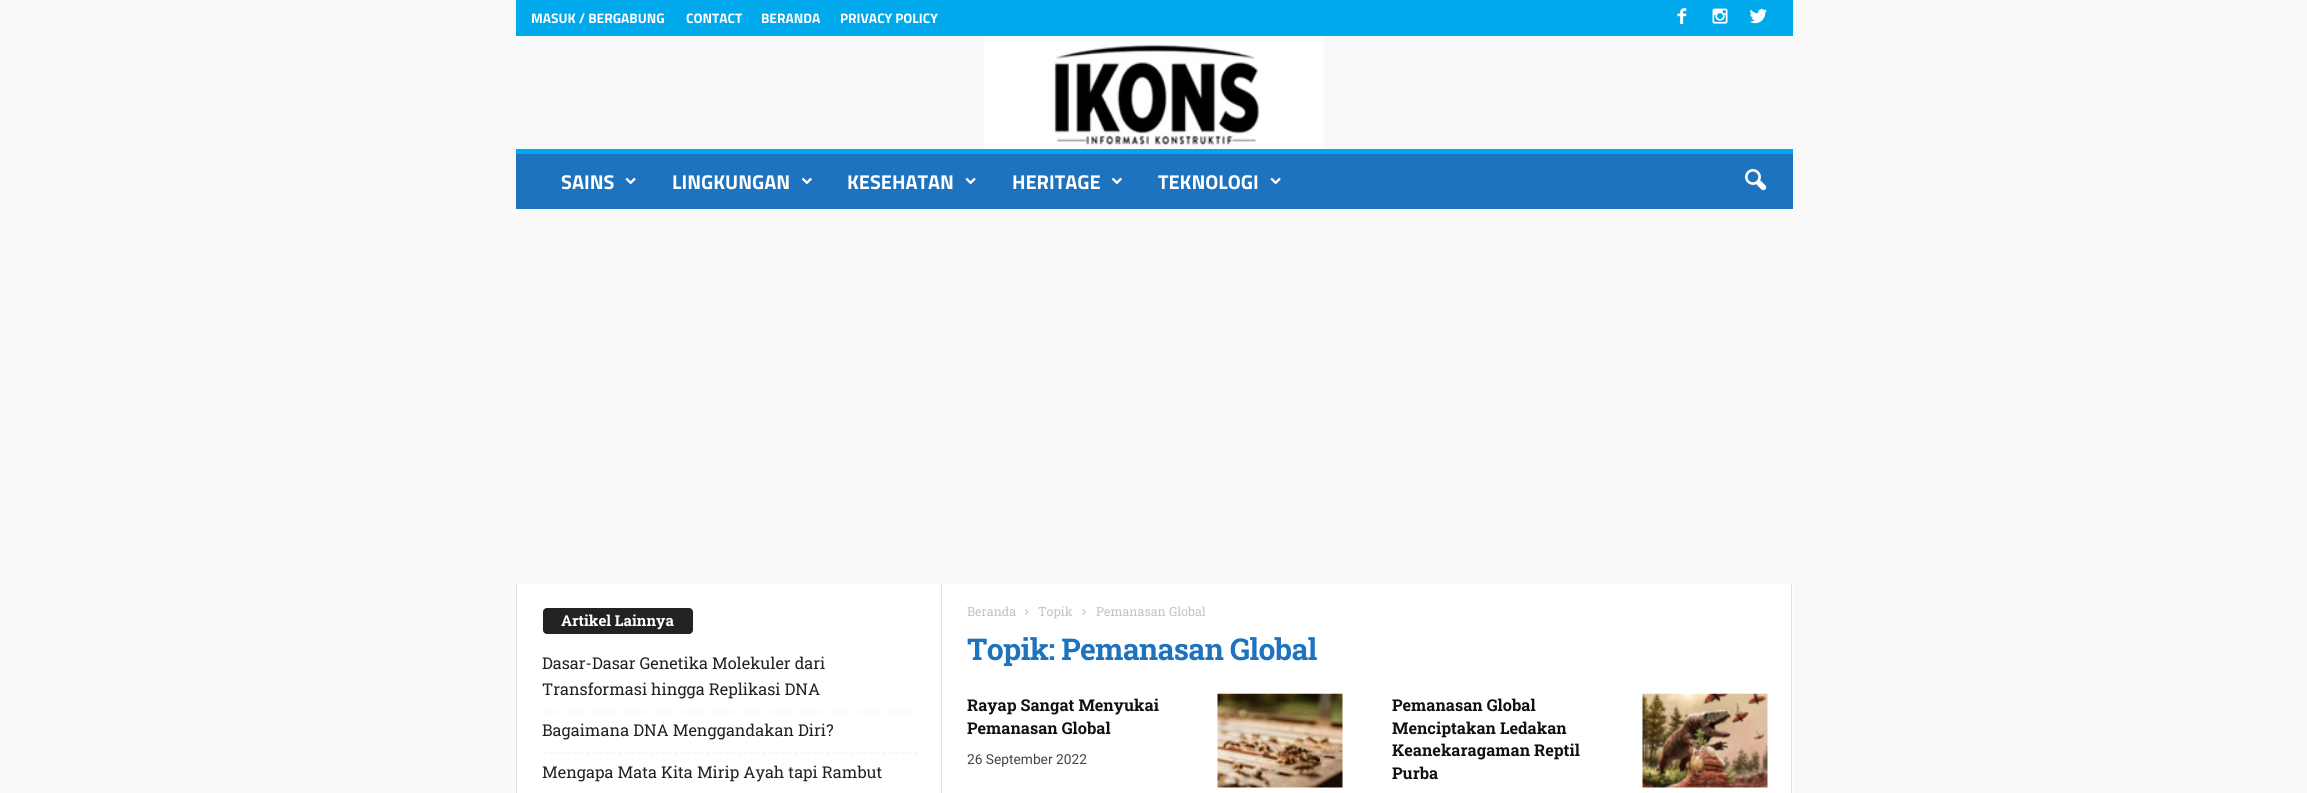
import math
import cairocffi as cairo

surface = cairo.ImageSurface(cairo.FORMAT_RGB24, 2307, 793)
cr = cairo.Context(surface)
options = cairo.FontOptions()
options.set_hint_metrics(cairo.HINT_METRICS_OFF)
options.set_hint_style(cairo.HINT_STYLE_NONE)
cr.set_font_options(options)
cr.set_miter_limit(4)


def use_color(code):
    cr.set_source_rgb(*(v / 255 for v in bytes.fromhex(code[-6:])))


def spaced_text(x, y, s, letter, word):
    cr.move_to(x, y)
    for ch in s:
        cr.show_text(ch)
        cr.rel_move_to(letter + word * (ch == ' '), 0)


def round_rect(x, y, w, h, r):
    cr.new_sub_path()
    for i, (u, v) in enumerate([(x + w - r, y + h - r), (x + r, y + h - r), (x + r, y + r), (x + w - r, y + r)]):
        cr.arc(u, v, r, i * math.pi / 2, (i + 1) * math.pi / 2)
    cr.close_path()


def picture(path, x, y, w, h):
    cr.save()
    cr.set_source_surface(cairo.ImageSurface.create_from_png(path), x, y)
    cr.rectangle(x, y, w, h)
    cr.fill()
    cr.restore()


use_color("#f9f9f9")
cr.paint()
use_color("#00a8ec")
cr.rectangle(516, 0, 1277, 36)
cr.fill()
cr.select_font_face("Titillium Web", cairo.FONT_SLANT_NORMAL, cairo.FONT_WEIGHT_BOLD)
cr.set_font_size(13.75)
use_color("#ffffff")
cr.move_to(531, 23)
cr.show_text("MASUK / BERGABUNG")
cr.move_to(686, 23)
cr.show_text("CONTACT")
cr.move_to(761, 23)
cr.show_text("BERANDA")
cr.move_to(840, 23)
cr.show_text("PRIVACY POLICY")
picture("img1.png", 1677, 8, 10, 16)
picture("img2.png", 1712, 8, 16, 16)
picture("img3.png", 1749, 9, 18, 15)
picture("img4.png", 984, 36, 340, 113)
use_color("#1e73be")
cr.rectangle(516, 154, 1277, 55)
cr.fill()
use_color("#00a8ec")
cr.rectangle(516, 149, 1277, 5)
cr.fill()
cr.set_font_size(20)
use_color("#ffffff")
cr.move_to(561, 189)
cr.show_text("SAINS")
picture("img5.png", 625, 177, 11, 8)
cr.move_to(672, 189)
cr.show_text("LINGKUNGAN")
picture("img6.png", 801, 177, 11, 8)
cr.move_to(847, 189)
cr.show_text("KESEHATAN")
picture("img5.png", 965, 177, 11, 8)
cr.move_to(1012, 189)
cr.show_text("HERITAGE")
picture("img6.png", 1111, 177, 11, 8)
cr.move_to(1158, 189)
cr.show_text("TEKNOLOGI")
picture("img5.png", 1270, 177, 11, 8)
picture("img7.png", 1745, 169, 22, 22)
cr.rectangle(517, 584, 1276, 209)
cr.fill()
use_color("#e2e2e2")
cr.rectangle(516, 584, 1, 209)
cr.fill()
use_color("#222222")
round_rect(543, 608, 150, 26, 4)
cr.fill()
cr.select_font_face("Roboto Slab", cairo.FONT_SLANT_NORMAL, cairo.FONT_WEIGHT_BOLD)
cr.set_font_size(15)
use_color("#ffffff")
cr.move_to(561, 626)
cr.show_text("Artikel Lainnya")
cr.new_path()
cr.move_to(542.5, 712)
cr.line_to(917.5, 712)
use_color("#f1f1f1")
cr.set_line_width(1.2)
cr.set_dash([3.75, 2.54])
cr.stroke()
cr.select_font_face("Roboto Slab")
cr.set_font_size(16.25)
use_color("#222222")
cr.move_to(542, 669)
cr.show_text("Dasar-Dasar Genetika Molekuler dari")
cr.move_to(542, 695)
cr.show_text("Transformasi hingga Replikasi DNA")
cr.new_path()
cr.move_to(542.5, 753)
cr.line_to(917.5, 753)
use_color("#f1f1f1")
cr.stroke()
use_color("#222222")
cr.move_to(542, 736)
cr.show_text("Bagaimana DNA Menggandakan Diri?")
cr.move_to(542, 778)
cr.show_text("Mengapa Mata Kita Mirip Ayah tapi Rambut")
use_color("#e2e2e2")
cr.rectangle(941, 584, 1, 209)
cr.fill()
cr.set_font_size(12.5)
use_color("#c3c3c3")
cr.move_to(967, 616)
cr.show_text("Beranda")
picture("img8.png", 1025, 609, 4, 6)
cr.move_to(1038, 616)
cr.show_text("Topik")
picture("img9.png", 1082, 609, 4, 6)
cr.move_to(1096, 616)
cr.show_text("Pemanasan Global")
cr.select_font_face("Roboto Slab", cairo.FONT_SLANT_NORMAL, cairo.FONT_WEIGHT_BOLD)
cr.set_font_size(30)
use_color("#1e73be")
spaced_text(967, 660, "Topik: Pemanasan Global", -0.6, 0)
cr.set_font_size(16.25)
use_color("#111111")
cr.move_to(967, 711)
cr.show_text("Rayap Sangat Menyukai")
cr.move_to(967, 734)
cr.show_text("Pemanasan Global")
cr.select_font_face("Roboto")
cr.set_font_size(13.75)
use_color("#444444")
cr.move_to(967, 764)
cr.show_text("26 September 2022")
picture("img10.png", 1217, 693, 126, 95)
cr.select_font_face("Roboto Slab", cairo.FONT_SLANT_NORMAL, cairo.FONT_WEIGHT_BOLD)
cr.set_font_size(16.25)
use_color("#111111")
cr.move_to(1392, 711)
cr.show_text("Pemanasan Global")
cr.move_to(1392, 734)
cr.show_text("Menciptakan Ledakan")
cr.move_to(1392, 756)
cr.show_text("Keanekaragaman Reptil")
cr.move_to(1392, 779)
cr.show_text("Purba")
picture("img11.png", 1642, 693, 126, 95)
use_color("#e2e2e2")
cr.rectangle(1791, 584, 1, 209)
cr.fill()
surface.write_to_png("result.png")
